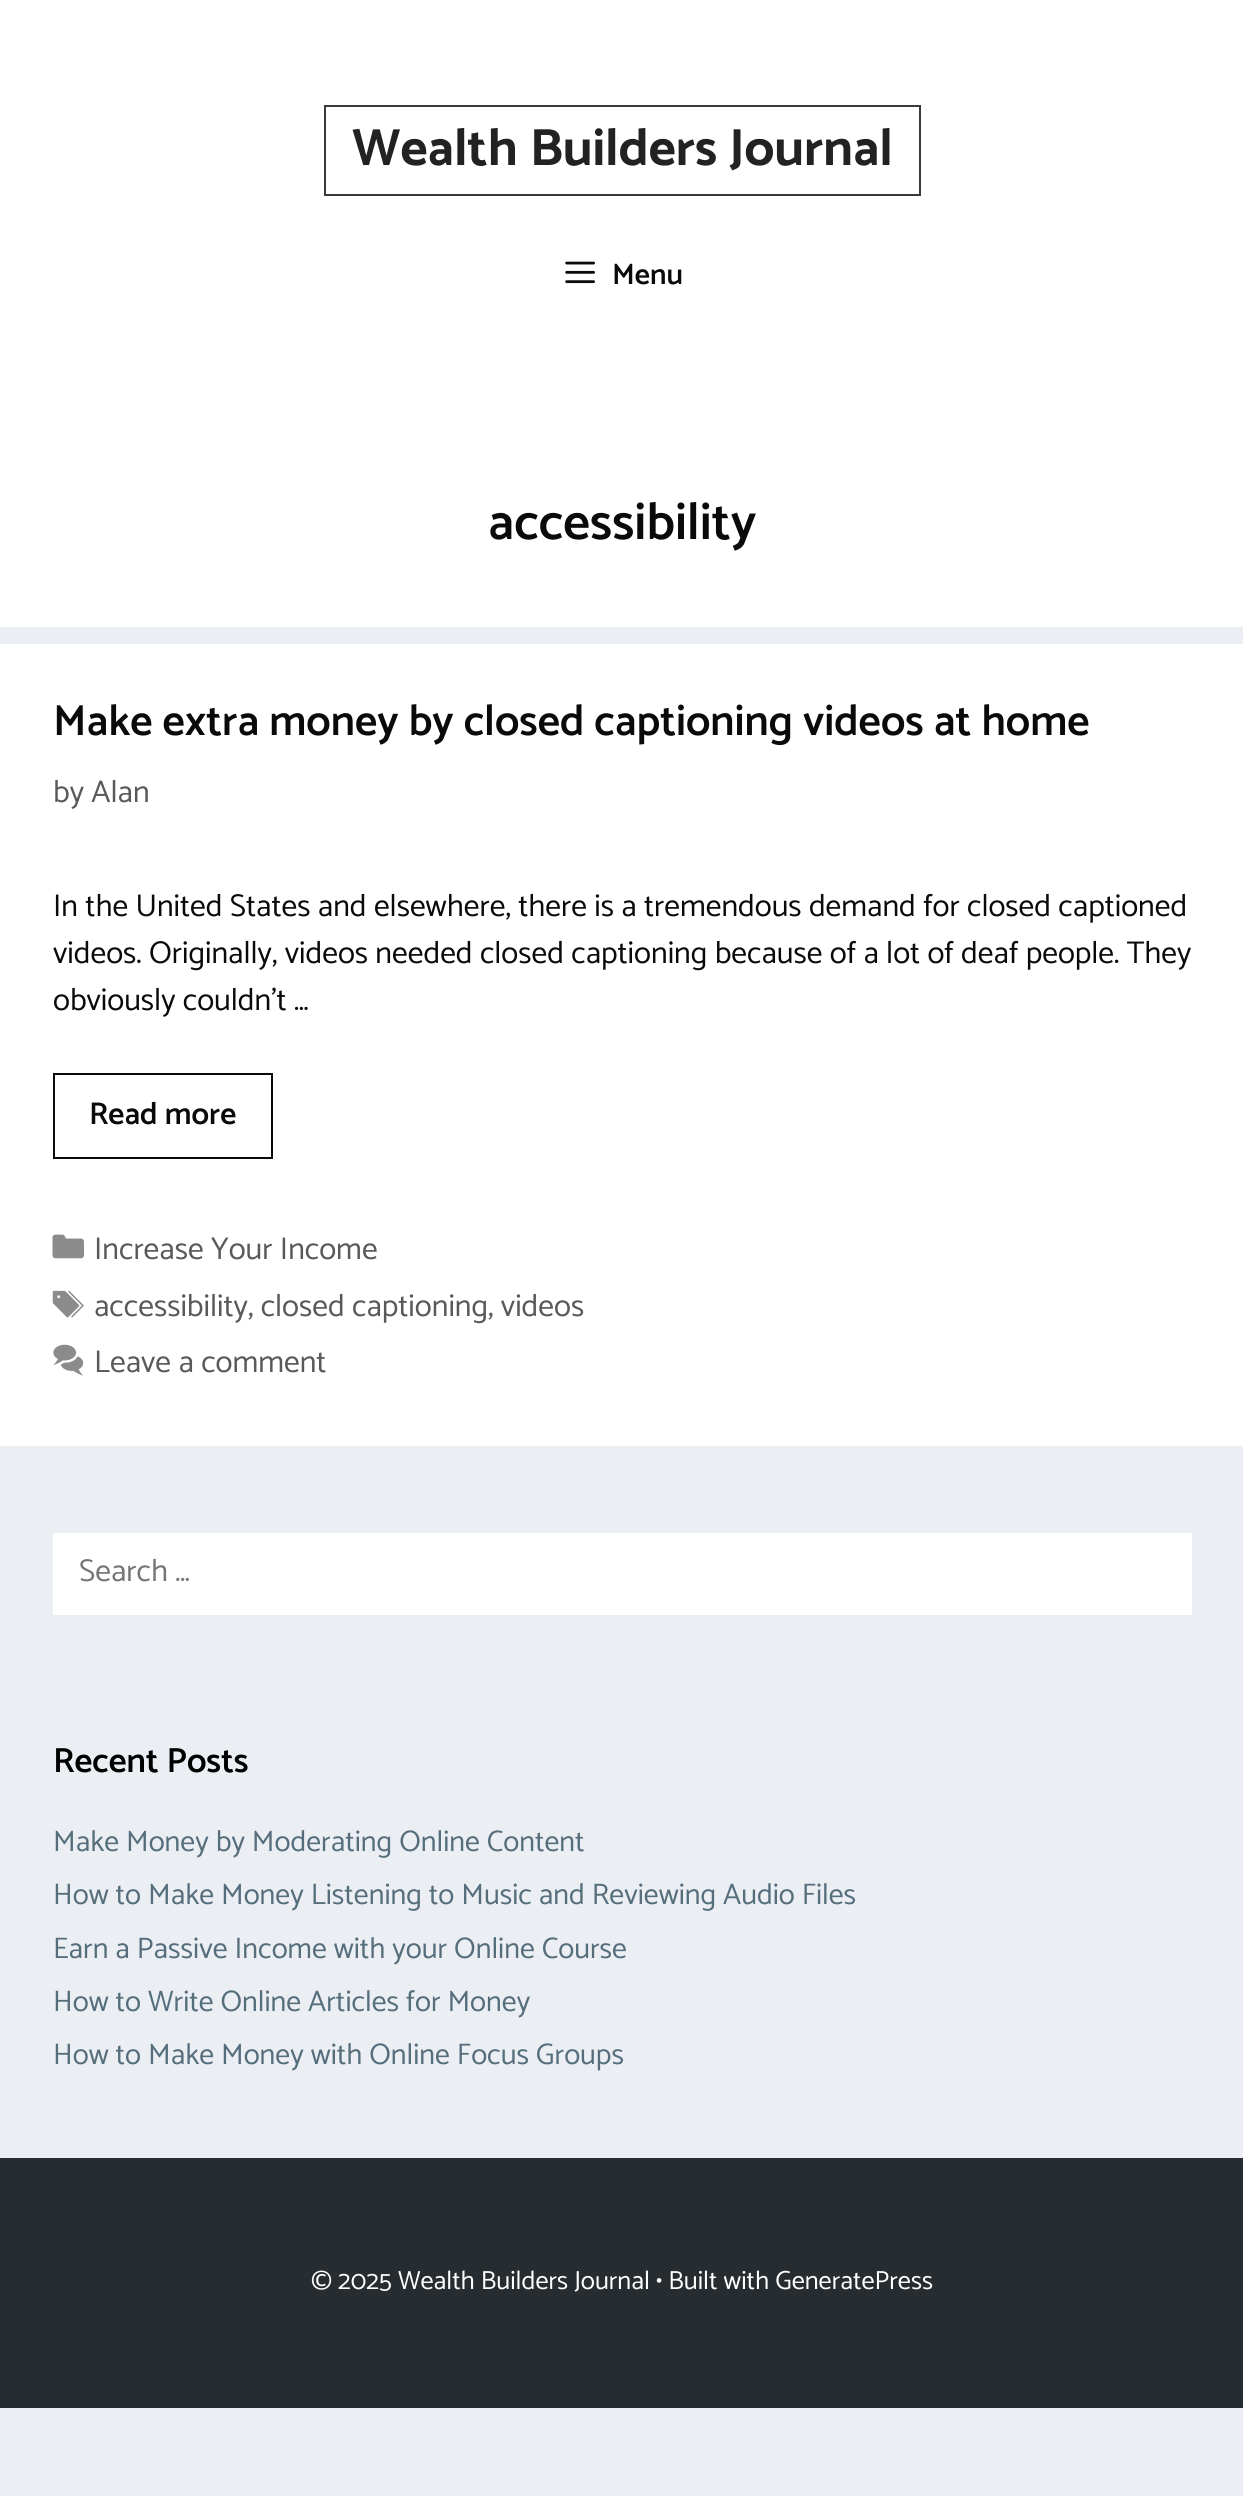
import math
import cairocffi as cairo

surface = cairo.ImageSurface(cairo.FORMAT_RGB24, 1243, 2496)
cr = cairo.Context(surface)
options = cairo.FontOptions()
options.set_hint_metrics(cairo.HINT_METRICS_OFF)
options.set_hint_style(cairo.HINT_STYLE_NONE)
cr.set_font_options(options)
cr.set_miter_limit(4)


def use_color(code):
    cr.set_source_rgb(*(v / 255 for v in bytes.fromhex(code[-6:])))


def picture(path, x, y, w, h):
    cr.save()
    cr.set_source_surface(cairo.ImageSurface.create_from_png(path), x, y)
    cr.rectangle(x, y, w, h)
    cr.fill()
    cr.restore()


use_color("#ebeff4")
cr.paint()
use_color("#ffffff")
cr.rectangle(0, 0, 1243, 627)
cr.fill()
cr.rectangle(325, 106, 595, 89)
use_color("#3a3a3a")
cr.stroke()
cr.select_font_face("Catamaran", cairo.FONT_SLANT_NORMAL, cairo.FONT_WEIGHT_BOLD)
cr.set_font_size(52.5)
use_color("#222222")
cr.move_to(352, 165)
cr.show_text("Wealth Builders Journal")
picture("img1.png", 565, 261, 30, 23)
cr.select_font_face("Catamaran SemiBold")
cr.set_font_size(29.75)
use_color("#0a0a0a")
cr.move_to(612, 284)
cr.show_text("Menu")
cr.set_font_size(52.5)
cr.move_to(488, 539)
cr.show_text("accessibility")
use_color("#ffffff")
cr.rectangle(0, 644, 1243, 802)
cr.fill()
cr.set_font_size(43.75)
use_color("#0a0a0a")
cr.move_to(53, 735)
cr.show_text("Make extra money by closed captioning videos at home")
cr.select_font_face("Catamaran")
cr.set_font_size(31.5)
use_color("#595959")
cr.move_to(53, 802)
cr.show_text("by Alan")
use_color("#0a0a0a")
cr.move_to(53, 916)
cr.show_text("In the United States and elsewhere, there is a tremendous demand for closed captioned")
cr.move_to(53, 963)
cr.show_text("videos. Originally, videos needed closed captioning because of a lot of deaf people. They")
cr.move_to(53, 1010)
cr.show_text("obviously couldn’t …")
cr.rectangle(54, 1074, 218, 84)
cr.stroke()
cr.select_font_face("Catamaran SemiBold")
cr.move_to(89, 1124)
cr.show_text("Read more")
picture("img2.png", 52, 1234, 32, 25)
cr.select_font_face("Catamaran")
use_color("#595959")
cr.move_to(94, 1259)
cr.show_text("Increase Your Income")
picture("img3.png", 52, 1290, 32, 28)
cr.move_to(94, 1316)
cr.show_text("accessibility, closed captioning, videos")
picture("img4.png", 53, 1344, 31, 32)
cr.move_to(94, 1372)
cr.show_text("Leave a comment")
use_color("#ffffff")
cr.rectangle(53, 1533, 1139, 82)
cr.fill()
use_color("#757575")
cr.move_to(79, 1581)
cr.show_text("Search …")
cr.select_font_face("Catamaran SemiBold")
cr.set_font_size(35)
use_color("#000000")
cr.move_to(53, 1772)
cr.show_text("Recent Posts")
cr.select_font_face("Catamaran")
cr.set_font_size(29.75)
use_color("#566e7c")
cr.move_to(53, 1851)
cr.show_text("Make Money by Moderating Online Content")
cr.move_to(53, 1904)
cr.show_text("How to Make Money Listening to Music and Reviewing Audio Files")
cr.move_to(53, 1958)
cr.show_text("Earn a Passive Income with your Online Course")
cr.move_to(53, 2011)
cr.show_text("How to Write Online Articles for Money")
cr.move_to(53, 2064)
cr.show_text("How to Make Money with Online Focus Groups")
use_color("#272c30")
cr.rectangle(0, 2158, 1243, 250)
cr.fill()
cr.set_font_size(26.25)
use_color("#ffffff")
cr.move_to(311, 2289)
cr.show_text("© 2025 Wealth Builders Journal • Built with GeneratePress")
surface.write_to_png("result.png")
